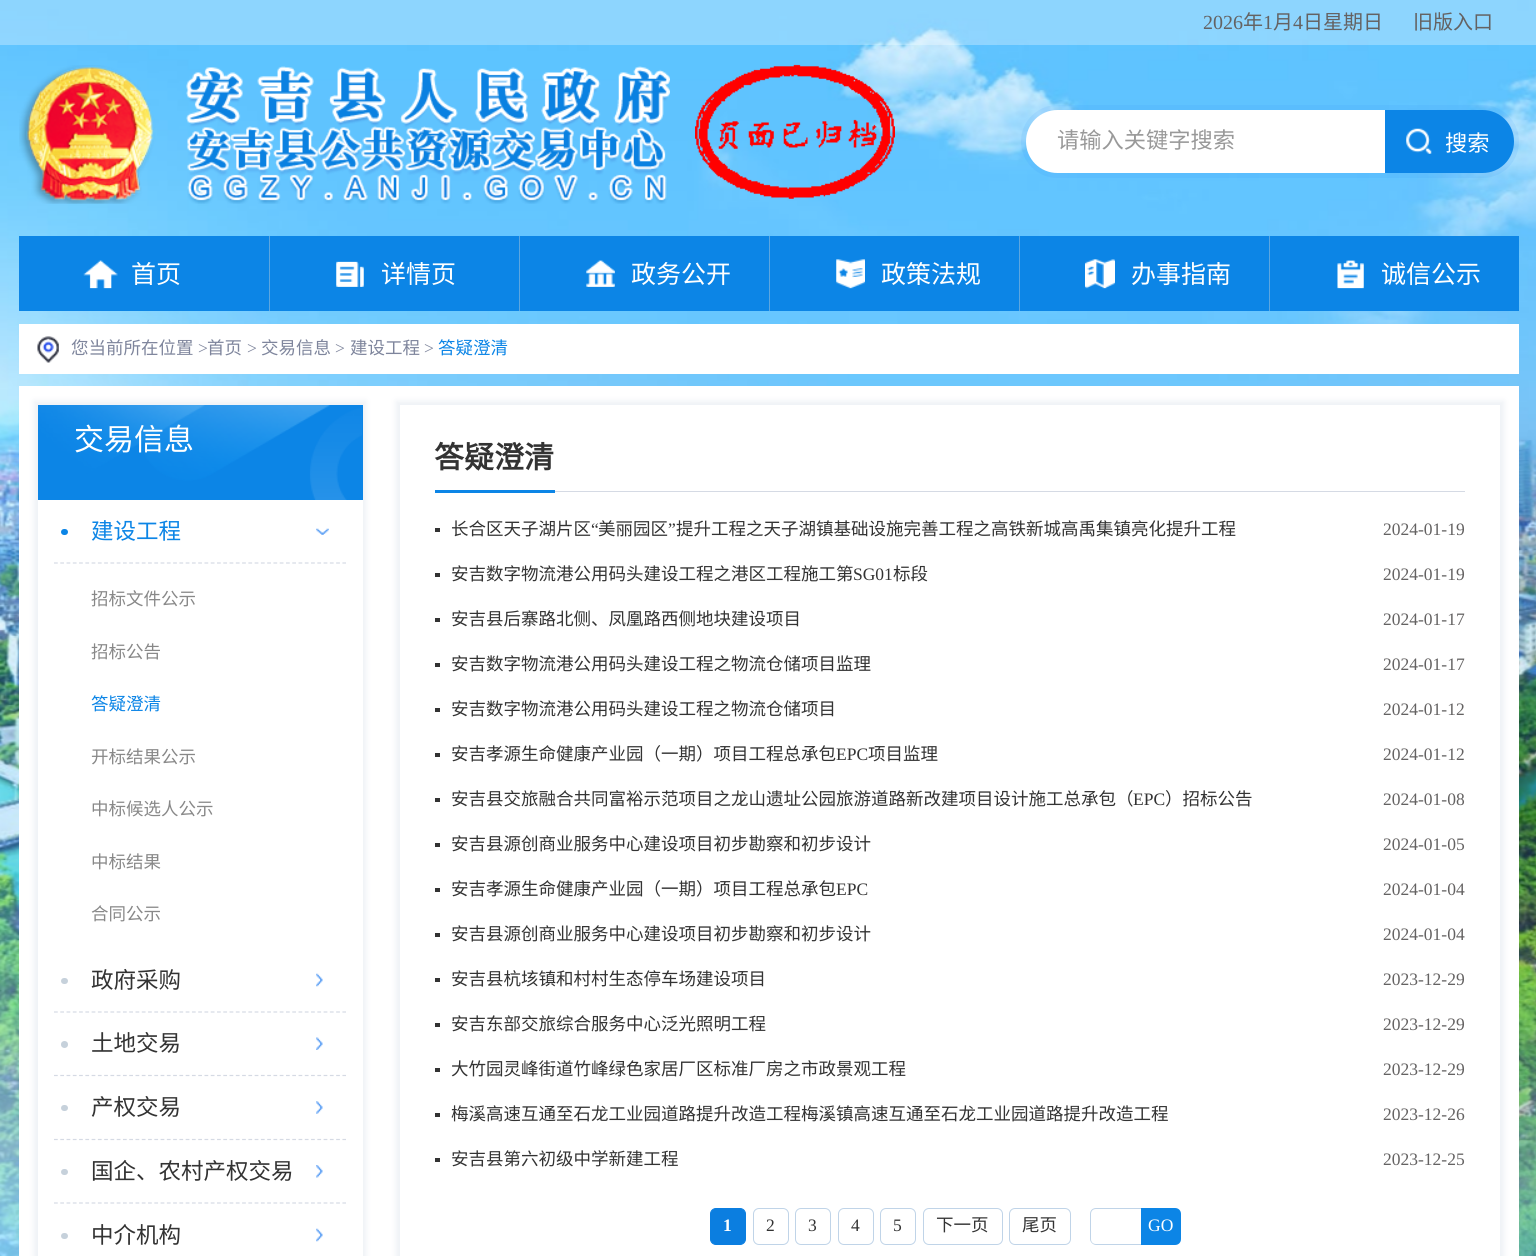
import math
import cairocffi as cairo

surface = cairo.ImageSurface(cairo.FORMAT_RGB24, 1536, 1256)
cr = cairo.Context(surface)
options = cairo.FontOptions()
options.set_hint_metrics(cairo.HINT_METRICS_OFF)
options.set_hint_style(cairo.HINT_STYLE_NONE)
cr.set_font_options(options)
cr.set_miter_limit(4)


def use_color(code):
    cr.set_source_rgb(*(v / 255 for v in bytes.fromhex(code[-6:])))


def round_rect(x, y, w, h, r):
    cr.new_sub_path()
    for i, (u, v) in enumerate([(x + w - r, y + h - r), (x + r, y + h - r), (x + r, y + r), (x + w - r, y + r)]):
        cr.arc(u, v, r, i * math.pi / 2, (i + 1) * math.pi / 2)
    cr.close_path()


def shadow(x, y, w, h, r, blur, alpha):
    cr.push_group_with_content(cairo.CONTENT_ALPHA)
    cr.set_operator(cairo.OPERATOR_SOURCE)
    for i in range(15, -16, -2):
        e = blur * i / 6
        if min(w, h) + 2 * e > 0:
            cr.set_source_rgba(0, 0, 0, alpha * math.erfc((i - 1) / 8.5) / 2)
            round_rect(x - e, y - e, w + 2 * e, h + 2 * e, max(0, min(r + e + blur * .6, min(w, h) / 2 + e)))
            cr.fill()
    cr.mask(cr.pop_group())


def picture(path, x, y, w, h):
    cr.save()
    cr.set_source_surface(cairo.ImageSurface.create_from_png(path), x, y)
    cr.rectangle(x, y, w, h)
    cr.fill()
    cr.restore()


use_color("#ffffff")
cr.paint()
picture("img1.png", 0, 0, 1536, 1256)
cr.set_source_rgba(1, 1, 1, 0.3)
cr.rectangle(0, 0, 1536, 45)
cr.fill()
cr.select_font_face("Liberation Serif")
cr.set_font_size(20)
use_color("#646262")
cr.move_to(1203, 29)
cr.show_text("2026")
cr.select_font_face("Noto Sans CJK SC")
cr.move_to(1243, 29)
cr.show_text("年")
cr.select_font_face("Liberation Serif")
cr.move_to(1263, 29)
cr.show_text("1")
cr.select_font_face("Noto Sans CJK SC")
cr.move_to(1273, 29)
cr.show_text("月")
cr.select_font_face("Liberation Serif")
cr.move_to(1293, 29)
cr.show_text("4")
cr.select_font_face("Noto Sans CJK SC")
cr.move_to(1303, 29)
cr.show_text("日星期日")
cr.move_to(1413, 29)
cr.show_text("旧版入口")
picture("img2.png", 19, 65, 651, 139)
picture("img3.png", 695, 64, 200, 135)
cr.set_source_rgba(0.188, 0.522, 0.961, 0.1)
round_rect(1021, 105, 498, 73, 36.5)
cr.fill()
use_color("#ffffff")
cr.new_path()
cr.move_to(1057.5, 110)
cr.line_to(1385, 110)
cr.line_to(1385, 173)
cr.line_to(1057.5, 173)
cr.curve_to(1040, 173, 1026, 159, 1026, 141.5)
cr.curve_to(1026, 124, 1040, 110, 1057.5, 110)
cr.close_path()
cr.fill()
cr.set_font_size(22.25)
use_color("#999999")
cr.move_to(1057, 148)
cr.show_text("请输入关键字搜索")
use_color("#0c85e6")
cr.new_path()
cr.move_to(1385, 110)
cr.line_to(1482.5, 110)
cr.curve_to(1500, 110, 1514, 124, 1514, 141.5)
cr.curve_to(1514, 159, 1500, 173, 1482.5, 173)
cr.line_to(1385, 173)
cr.close_path()
cr.fill()
picture("img4.png", 1406, 128, 26, 26)
use_color("#ffffff")
cr.move_to(1445, 151)
cr.show_text("搜索")
use_color("#0c85e6")
cr.rectangle(19, 236, 250, 75)
cr.fill()
picture("img5.png", 83, 260, 35, 29)
cr.set_font_size(25)
use_color("#ffffff")
cr.move_to(131, 283)
cr.show_text("首页")
use_color("#0c85e6")
cr.rectangle(270, 236, 249, 75)
cr.fill()
use_color("#5ca6e0")
cr.rectangle(269, 236, 1, 75)
cr.fill()
picture("img6.png", 336, 261, 28, 26)
use_color("#ffffff")
cr.move_to(381, 283)
cr.show_text("详情页")
use_color("#0c85e6")
cr.rectangle(520, 236, 249, 75)
cr.fill()
use_color("#5ca6e0")
cr.rectangle(519, 236, 1, 75)
cr.fill()
picture("img7.png", 586, 260, 29, 27)
use_color("#ffffff")
cr.move_to(631, 283)
cr.show_text("政务公开")
use_color("#0c85e6")
cr.rectangle(770, 236, 249, 75)
cr.fill()
use_color("#5ca6e0")
cr.rectangle(769, 236, 1, 75)
cr.fill()
picture("img8.png", 836, 259, 29, 30)
use_color("#ffffff")
cr.move_to(881, 283)
cr.show_text("政策法规")
use_color("#0c85e6")
cr.rectangle(1020, 236, 249, 75)
cr.fill()
use_color("#5ca6e0")
cr.rectangle(1019, 236, 1, 75)
cr.fill()
picture("img9.png", 1085, 259, 30, 30)
use_color("#ffffff")
cr.move_to(1131, 283)
cr.show_text("办事指南")
use_color("#0c85e6")
cr.rectangle(1270, 236, 249, 75)
cr.fill()
use_color("#5ca6e0")
cr.rectangle(1269, 236, 1, 75)
cr.fill()
picture("img10.png", 1337, 260, 27, 29)
use_color("#ffffff")
cr.move_to(1381, 283)
cr.show_text("诚信公示")
cr.rectangle(19, 324, 1500, 50)
cr.fill()
picture("img11.png", 37, 336, 22, 27)
cr.set_font_size(17.5)
use_color("#7e859c")
cr.move_to(71, 354)
cr.show_text("您当前所在位置")
cr.select_font_face("Liberation Serif")
cr.move_to(198, 354)
cr.show_text(">")
cr.select_font_face("Noto Sans CJK SC")
cr.move_to(207, 354)
cr.show_text("首页")
cr.select_font_face("Liberation Serif")
cr.move_to(247, 354)
cr.show_text(">")
cr.select_font_face("Noto Sans CJK SC")
cr.move_to(261, 354)
cr.show_text("交易信息")
cr.select_font_face("Liberation Serif")
cr.move_to(335, 354)
cr.show_text(">")
cr.select_font_face("Noto Sans CJK SC")
cr.move_to(350, 354)
cr.show_text("建设工程")
cr.select_font_face("Liberation Serif")
cr.move_to(424, 354)
cr.show_text(">")
cr.select_font_face("Noto Sans CJK SC")
use_color("#0c85e6")
cr.move_to(438, 354)
cr.show_text("答疑澄清")
use_color("#ffffff")
cr.rectangle(19, 386, 1500, 870)
cr.fill()
use_color("#4f719d")
shadow(34, 401, 332, 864, 0, 3, 0.1)
use_color("#ffffff")
cr.rectangle(38, 500, 325, 756)
cr.fill()
use_color("#0c85e6")
cr.rectangle(38, 405, 325, 95)
cr.fill()
picture("img12.png", 38, 405, 324, 95)
cr.set_font_size(30)
use_color("#ffffff")
cr.move_to(74, 450)
cr.show_text("交易信息")
picture("img13.png", 316, 528, 13, 7)
cr.new_path()
cr.move_to(54, 563)
cr.line_to(346, 563)
use_color("#d5dae4")
cr.set_line_width(1.2)
cr.set_dash([3.75, 2.52])
cr.stroke()
use_color("#0c85e6")
round_rect(61, 529, 7, 6, 3)
cr.fill()
cr.set_font_size(22.5)
cr.move_to(91, 539)
cr.show_text("建设工程")
cr.set_font_size(17.5)
use_color("#888888")
cr.move_to(91, 605)
cr.show_text("招标文件公示")
cr.move_to(91, 658)
cr.show_text("招标公告")
use_color("#0c85e6")
cr.move_to(91, 710)
cr.show_text("答疑澄清")
use_color("#888888")
cr.move_to(91, 763)
cr.show_text("开标结果公示")
cr.move_to(91, 815)
cr.show_text("中标候选人公示")
cr.move_to(91, 868)
cr.show_text("中标结果")
cr.move_to(91, 920)
cr.show_text("合同公示")
picture("img14.png", 316, 973, 7, 14)
cr.new_path()
cr.move_to(54, 1012)
cr.line_to(346, 1012)
use_color("#d5dae4")
cr.stroke()
use_color("#c6d1db")
round_rect(61, 978, 7, 6, 3)
cr.fill()
cr.set_font_size(22.5)
use_color("#333333")
cr.move_to(91, 988)
cr.show_text("政府采购")
picture("img15.png", 316, 1037, 7, 13)
cr.new_path()
cr.move_to(54, 1075.5)
cr.line_to(346, 1075.5)
use_color("#d5dae4")
cr.stroke()
use_color("#c6d1db")
cr.arc(64.5, 1044.5, 3.5, 0, 2 * math.pi)
cr.fill()
use_color("#333333")
cr.move_to(91, 1051)
cr.show_text("土地交易")
picture("img16.png", 316, 1101, 7, 13)
cr.new_path()
cr.move_to(54, 1139.5)
cr.line_to(346, 1139.5)
use_color("#d5dae4")
cr.stroke()
use_color("#c6d1db")
round_rect(61, 1105, 7, 6, 3)
cr.fill()
use_color("#333333")
cr.move_to(91, 1115)
cr.show_text("产权交易")
picture("img17.png", 316, 1165, 7, 13)
cr.new_path()
cr.move_to(54, 1203)
cr.line_to(346, 1203)
use_color("#d5dae4")
cr.stroke()
use_color("#c6d1db")
round_rect(61, 1169, 7, 6, 3)
cr.fill()
use_color("#333333")
cr.move_to(91, 1179)
cr.show_text("国企、农村产权交易")
picture("img14.png", 316, 1228, 7, 14)
use_color("#c6d1db")
round_rect(61, 1233, 7, 6, 3)
cr.fill()
use_color("#333333")
cr.move_to(91, 1243)
cr.show_text("中介机构")
cr.save()
cr.set_fill_rule(cairo.FILL_RULE_EVEN_ODD)
cr.new_path()
cr.move_to(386, 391)
cr.line_to(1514, 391)
cr.line_to(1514, 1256)
cr.line_to(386, 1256)
cr.close_path()
cr.move_to(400, 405)
cr.line_to(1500, 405)
cr.line_to(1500, 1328)
cr.line_to(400, 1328)
cr.close_path()
cr.clip()
use_color("#4f719d")
shadow(396, 401, 1108, 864, 0, 3, 0.1)
cr.restore()
use_color("#d5dae4")
cr.rectangle(555, 491, 910, 1)
cr.fill()
use_color("#0c85e6")
cr.rectangle(435, 490, 120, 3)
cr.fill()
cr.select_font_face("Noto Sans CJK SC", cairo.FONT_SLANT_NORMAL, cairo.FONT_WEIGHT_BOLD)
cr.set_font_size(30)
use_color("#333333")
cr.move_to(434, 468)
cr.show_text("答疑澄清")
cr.rectangle(435, 528, 5, 4)
cr.fill()
cr.select_font_face("Noto Sans CJK SC")
cr.set_font_size(17.5)
cr.move_to(451, 535)
cr.show_text("长合区天子湖片区")
cr.select_font_face("Liberation Serif")
cr.move_to(591, 535)
cr.show_text("“")
cr.select_font_face("Noto Sans CJK SC")
cr.move_to(598, 535)
cr.show_text("美丽园区")
cr.select_font_face("Liberation Serif")
cr.move_to(668, 535)
cr.show_text("”")
cr.select_font_face("Noto Sans CJK SC")
cr.move_to(676, 535)
cr.show_text("提升工程之天子湖镇基础设施完善工程之高铁新城高禹集镇亮化提升工程")
cr.select_font_face("Liberation Serif")
use_color("#646262")
cr.move_to(1383, 535)
cr.show_text("2024-01-19")
use_color("#333333")
cr.rectangle(435, 573, 5, 4)
cr.fill()
cr.select_font_face("Noto Sans CJK SC")
cr.move_to(451, 580)
cr.show_text("安吉数字物流港公用码头建设工程之港区工程施工第")
cr.select_font_face("Liberation Serif")
cr.move_to(853, 580)
cr.show_text("SG01")
cr.select_font_face("Noto Sans CJK SC")
cr.move_to(893, 580)
cr.show_text("标段")
cr.select_font_face("Liberation Serif")
use_color("#646262")
cr.move_to(1383, 580)
cr.show_text("2024-01-19")
use_color("#333333")
cr.rectangle(435, 618, 5, 4)
cr.fill()
cr.select_font_face("Noto Sans CJK SC")
cr.move_to(451, 625)
cr.show_text("安吉县后寨路北侧、凤凰路西侧地块建设项目")
cr.select_font_face("Liberation Serif")
use_color("#646262")
cr.move_to(1383, 625)
cr.show_text("2024-01-17")
use_color("#333333")
cr.rectangle(435, 663, 5, 4)
cr.fill()
cr.select_font_face("Noto Sans CJK SC")
cr.move_to(451, 670)
cr.show_text("安吉数字物流港公用码头建设工程之物流仓储项目监理")
cr.select_font_face("Liberation Serif")
use_color("#646262")
cr.move_to(1383, 670)
cr.show_text("2024-01-17")
use_color("#333333")
cr.rectangle(435, 708, 5, 4)
cr.fill()
cr.select_font_face("Noto Sans CJK SC")
cr.move_to(451, 715)
cr.show_text("安吉数字物流港公用码头建设工程之物流仓储项目")
cr.select_font_face("Liberation Serif")
use_color("#646262")
cr.move_to(1383, 715)
cr.show_text("2024-01-12")
use_color("#333333")
cr.rectangle(435, 753, 5, 4)
cr.fill()
cr.select_font_face("Noto Sans CJK SC")
cr.move_to(451, 760)
cr.show_text("安吉孝源生命健康产业园（一期）项目工程总承包")
cr.select_font_face("Liberation Serif")
cr.move_to(836, 760)
cr.show_text("EPC")
cr.select_font_face("Noto Sans CJK SC")
cr.move_to(868, 760)
cr.show_text("项目监理")
cr.select_font_face("Liberation Serif")
use_color("#646262")
cr.move_to(1383, 760)
cr.show_text("2024-01-12")
use_color("#333333")
cr.rectangle(435, 798, 5, 4)
cr.fill()
cr.select_font_face("Noto Sans CJK SC")
cr.move_to(451, 805)
cr.show_text("安吉县交旅融合共同富裕示范项目之龙山遗址公园旅游道路新改建项目设计施工总承包（")
cr.select_font_face("Liberation Serif")
cr.move_to(1133, 805)
cr.show_text("EPC")
cr.select_font_face("Noto Sans CJK SC")
cr.move_to(1165, 805)
cr.show_text("）招标公告")
cr.select_font_face("Liberation Serif")
use_color("#646262")
cr.move_to(1383, 805)
cr.show_text("2024-01-08")
use_color("#333333")
cr.rectangle(435, 843, 5, 4)
cr.fill()
cr.select_font_face("Noto Sans CJK SC")
cr.move_to(451, 850)
cr.show_text("安吉县源创商业服务中心建设项目初步勘察和初步设计")
cr.select_font_face("Liberation Serif")
use_color("#646262")
cr.move_to(1383, 850)
cr.show_text("2024-01-05")
use_color("#333333")
cr.rectangle(435, 888, 5, 4)
cr.fill()
cr.select_font_face("Noto Sans CJK SC")
cr.move_to(451, 895)
cr.show_text("安吉孝源生命健康产业园（一期）项目工程总承包")
cr.select_font_face("Liberation Serif")
cr.move_to(836, 895)
cr.show_text("EPC")
use_color("#646262")
cr.move_to(1383, 895)
cr.show_text("2024-01-04")
use_color("#333333")
cr.rectangle(435, 933, 5, 4)
cr.fill()
cr.select_font_face("Noto Sans CJK SC")
cr.move_to(451, 940)
cr.show_text("安吉县源创商业服务中心建设项目初步勘察和初步设计")
cr.select_font_face("Liberation Serif")
use_color("#646262")
cr.move_to(1383, 940)
cr.show_text("2024-01-04")
use_color("#333333")
cr.rectangle(435, 978, 5, 4)
cr.fill()
cr.select_font_face("Noto Sans CJK SC")
cr.move_to(451, 985)
cr.show_text("安吉县杭垓镇和村村生态停车场建设项目")
cr.select_font_face("Liberation Serif")
use_color("#646262")
cr.move_to(1383, 985)
cr.show_text("2023-12-29")
use_color("#333333")
cr.rectangle(435, 1023, 5, 4)
cr.fill()
cr.select_font_face("Noto Sans CJK SC")
cr.move_to(451, 1030)
cr.show_text("安吉东部交旅综合服务中心泛光照明工程")
cr.select_font_face("Liberation Serif")
use_color("#646262")
cr.move_to(1383, 1030)
cr.show_text("2023-12-29")
use_color("#333333")
cr.rectangle(435, 1068, 5, 4)
cr.fill()
cr.select_font_face("Noto Sans CJK SC")
cr.move_to(451, 1075)
cr.show_text("大竹园灵峰街道竹峰绿色家居厂区标准厂房之市政景观工程")
cr.select_font_face("Liberation Serif")
use_color("#646262")
cr.move_to(1383, 1075)
cr.show_text("2023-12-29")
use_color("#333333")
cr.rectangle(435, 1113, 5, 4)
cr.fill()
cr.select_font_face("Noto Sans CJK SC")
cr.move_to(451, 1120)
cr.show_text("梅溪高速互通至石龙工业园道路提升改造工程梅溪镇高速互通至石龙工业园道路提升改造工程")
cr.select_font_face("Liberation Serif")
use_color("#646262")
cr.move_to(1383, 1120)
cr.show_text("2023-12-26")
use_color("#333333")
cr.rectangle(435, 1158, 5, 4)
cr.fill()
cr.select_font_face("Noto Sans CJK SC")
cr.move_to(451, 1165)
cr.show_text("安吉县第六初级中学新建工程")
cr.select_font_face("Liberation Serif")
use_color("#646262")
cr.move_to(1383, 1165)
cr.show_text("2023-12-25")
use_color("#0b7ee0")
round_rect(710.5, 1208.5, 35, 36, 5.5)
cr.fill_preserve()
cr.set_line_width(1)
cr.set_dash([])
cr.stroke()
cr.select_font_face("Liberation Serif", cairo.FONT_SLANT_NORMAL, cairo.FONT_WEIGHT_BOLD)
use_color("#ffffff")
cr.move_to(723, 1231)
cr.show_text("1")
round_rect(753.5, 1208.5, 35, 36, 5.5)
use_color("#c0d4e8")
cr.stroke()
cr.select_font_face("Liberation Serif")
use_color("#333333")
cr.move_to(766, 1231)
cr.show_text("2")
round_rect(795.5, 1208.5, 35, 36, 5.5)
use_color("#c0d4e8")
cr.stroke()
use_color("#333333")
cr.move_to(808, 1231)
cr.show_text("3")
round_rect(838.5, 1208.5, 35, 36, 5.5)
use_color("#c0d4e8")
cr.stroke()
use_color("#333333")
cr.move_to(851, 1231)
cr.show_text("4")
round_rect(880.5, 1208.5, 35, 36, 5.5)
use_color("#c0d4e8")
cr.stroke()
use_color("#333333")
cr.move_to(893, 1231)
cr.show_text("5")
round_rect(923.5, 1208.5, 79, 36, 5.5)
use_color("#c0d4e8")
cr.stroke()
cr.select_font_face("Noto Sans CJK SC")
use_color("#333333")
cr.move_to(936, 1231)
cr.show_text("下一页")
round_rect(1009.5, 1208.5, 61, 36, 5.5)
use_color("#c0d4e8")
cr.stroke()
use_color("#333333")
cr.move_to(1022, 1231)
cr.show_text("尾页")
use_color("#c0d4e8")
cr.set_fill_rule(cairo.FILL_RULE_EVEN_ODD)
cr.new_path()
cr.move_to(1096, 1208)
cr.line_to(1141, 1208)
cr.line_to(1141, 1245)
cr.line_to(1096, 1245)
cr.curve_to(1093, 1245, 1090, 1242, 1090, 1239)
cr.line_to(1090, 1214)
cr.curve_to(1090, 1210, 1093, 1208, 1096, 1208)
cr.close_path()
cr.move_to(1096, 1209)
cr.line_to(1141, 1209)
cr.line_to(1141, 1244)
cr.line_to(1096, 1244)
cr.curve_to(1093, 1244, 1091, 1242, 1091, 1239)
cr.line_to(1091, 1214)
cr.curve_to(1091, 1211, 1093, 1209, 1096, 1209)
cr.close_path()
cr.fill()
use_color("#0c85e6")
cr.new_path()
cr.move_to(1141, 1208)
cr.line_to(1175, 1208)
cr.curve_to(1178.5, 1208, 1181, 1210.5, 1181, 1214)
cr.line_to(1181, 1239)
cr.curve_to(1181, 1242.5, 1178.5, 1245, 1175, 1245)
cr.line_to(1141, 1245)
cr.close_path()
cr.fill()
cr.select_font_face("Liberation Serif")
use_color("#ffffff")
cr.move_to(1148, 1231)
cr.show_text("GO")
surface.write_to_png("result.png")
